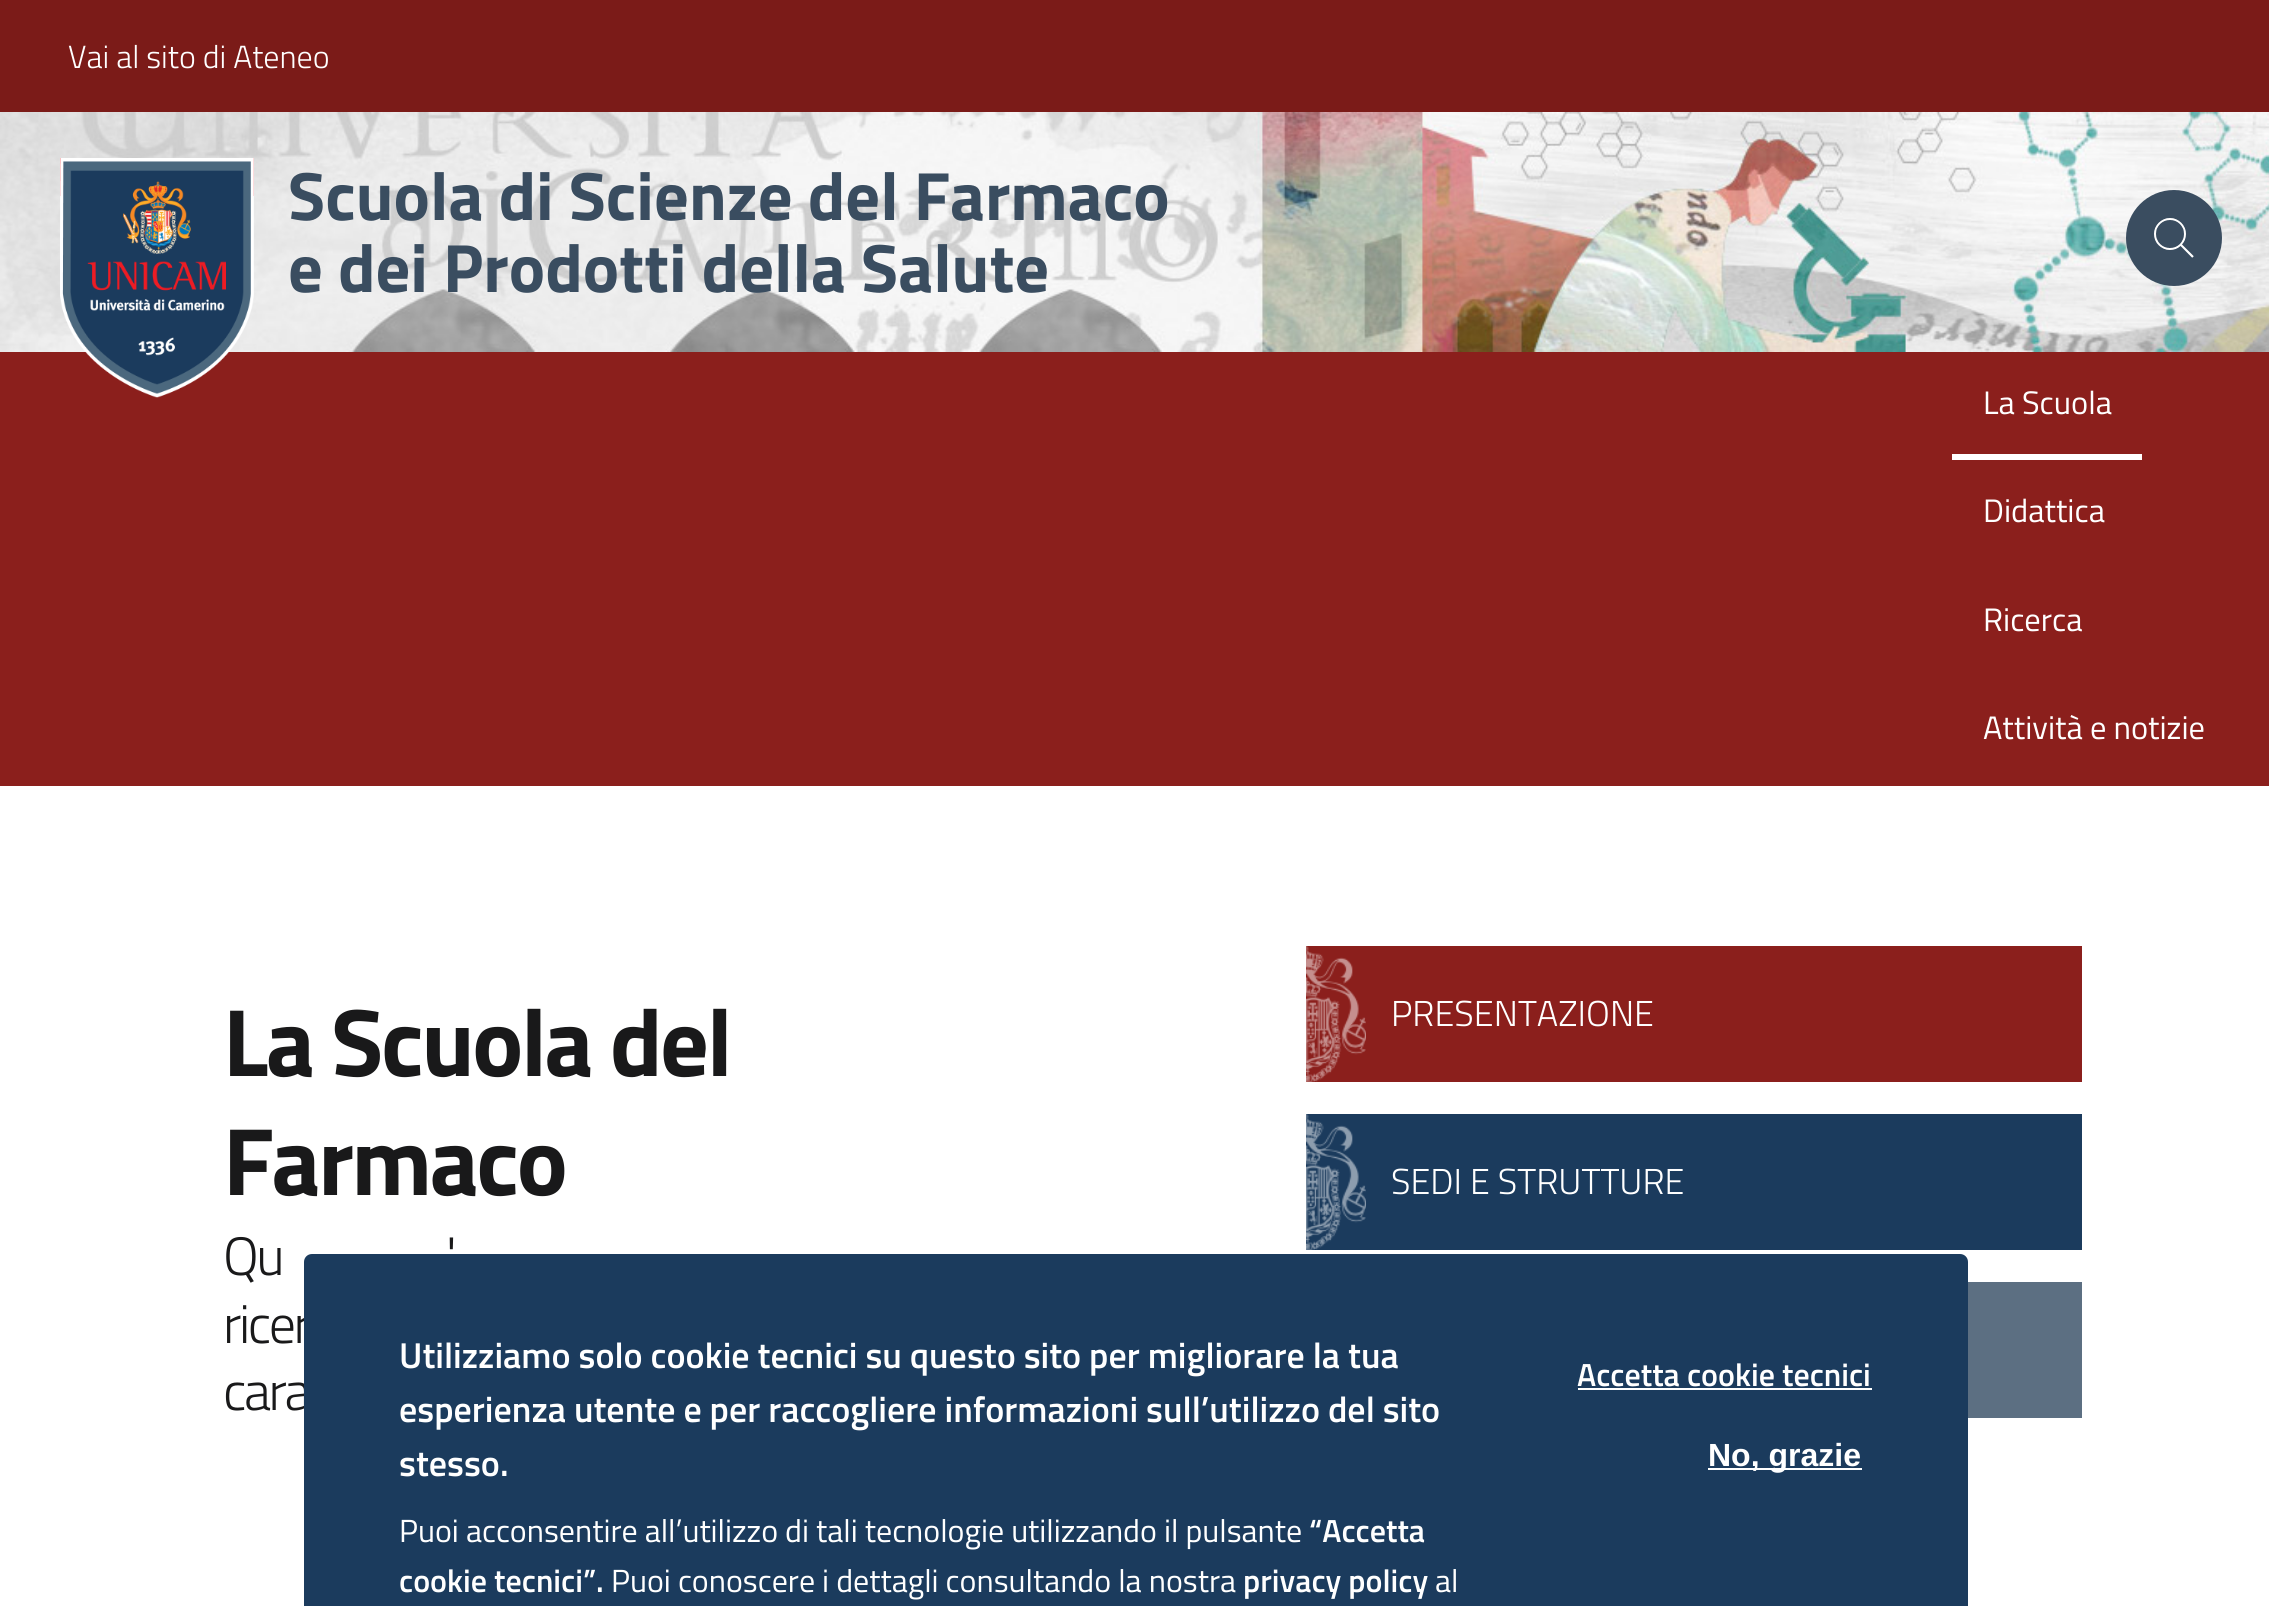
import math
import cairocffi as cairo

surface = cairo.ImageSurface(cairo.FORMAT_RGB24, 2269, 1606)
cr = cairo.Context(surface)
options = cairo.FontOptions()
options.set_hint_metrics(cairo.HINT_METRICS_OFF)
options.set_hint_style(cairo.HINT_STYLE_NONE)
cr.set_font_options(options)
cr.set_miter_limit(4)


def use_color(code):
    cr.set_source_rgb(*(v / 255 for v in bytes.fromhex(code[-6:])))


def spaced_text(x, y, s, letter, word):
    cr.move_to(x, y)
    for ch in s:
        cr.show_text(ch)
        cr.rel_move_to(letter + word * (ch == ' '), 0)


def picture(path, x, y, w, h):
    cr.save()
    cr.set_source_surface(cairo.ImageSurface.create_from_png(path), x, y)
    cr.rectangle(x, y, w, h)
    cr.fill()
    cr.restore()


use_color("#ffffff")
cr.paint()
use_color("#7b1b18")
cr.rectangle(0, 0, 2269, 112)
cr.fill()
cr.select_font_face("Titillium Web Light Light")
cr.set_font_size(32)
use_color("#ffffff")
cr.move_to(68, 68)
cr.show_text("Vai al sito di Ateneo")
picture("img1.png", 0, 112, 2269, 240)
use_color("#8b1f1c")
cr.rectangle(0, 352, 2269, 434)
cr.fill()
picture("img2.png", 60, 158, 194, 240)
cr.select_font_face("Titillium Web", cairo.FONT_SLANT_NORMAL, cairo.FONT_WEIGHT_BOLD)
cr.set_font_size(68.4)
use_color("#3a4d60")
cr.move_to(288, 220)
cr.show_text("Scuola di Scienze del Farmaco")
cr.move_to(288, 292)
cr.show_text("e dei Prodotti della Salute")
cr.new_path()
cr.arc(2174, 238, 48, 0, 2 * math.pi)
cr.fill()
picture("img3.png", 2154, 218, 40, 40)
use_color("#ffffff")
cr.rectangle(1952, 454, 190, 6)
cr.fill()
cr.select_font_face("Titillium Web")
cr.set_font_size(32.5)
cr.move_to(1983, 414)
cr.show_text("La Scuola")
cr.move_to(1983, 522)
cr.show_text("Didattica")
cr.move_to(1983, 631)
cr.show_text("Ricerca")
cr.move_to(1983, 739)
cr.show_text("Attività e notizie")
cr.select_font_face("Titillium Web", cairo.FONT_SLANT_NORMAL, cairo.FONT_WEIGHT_BOLD)
cr.set_font_size(96)
use_color("#19191a")
spaced_text(223, 1076, "La Scuola del", -2.4, 0)
spaced_text(223, 1195, "Farmaco", -2.4, 0)
cr.select_font_face("Titillium Web Light Light")
cr.set_font_size(54)
spaced_text(223, 1275, "Qu", -2.4, 0)
spaced_text(446, 1275, "'", -2.4, 0)
spaced_text(223, 1343, "ricer", -2.4, 0)
spaced_text(223, 1410, "cara", -2.4, 0)
use_color("#8b1f1c")
cr.rectangle(1306, 946, 776, 136)
cr.fill()
picture("img4.png", 1306, 946, 60, 136)
cr.set_font_size(36)
use_color("#ffffff")
cr.move_to(1391, 1026)
cr.show_text("PRESENTAZIONE")
use_color("#1b3b5d")
cr.rectangle(1306, 1114, 776, 136)
cr.fill()
picture("img5.png", 1306, 1114, 60, 136)
use_color("#ffffff")
cr.move_to(1391, 1194)
cr.show_text("SEDI E STRUTTURE")
use_color("#5c6f82")
cr.rectangle(1968, 1282, 114, 136)
cr.fill()
use_color("#1b3b5d")
cr.new_path()
cr.move_to(312, 1254)
cr.line_to(1960, 1254)
cr.curve_to(1964.5, 1254, 1968, 1257.5, 1968, 1262)
cr.line_to(1968, 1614)
cr.line_to(304, 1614)
cr.line_to(304, 1262)
cr.curve_to(304, 1257.5, 307.5, 1254, 312, 1254)
cr.close_path()
cr.fill()
cr.select_font_face("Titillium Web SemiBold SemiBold")
use_color("#ffffff")
cr.move_to(399, 1368)
cr.show_text("Utilizziamo solo cookie tecnici su questo sito per migliorare la tua")
cr.move_to(399, 1422)
cr.show_text("esperienza utente e per raccogliere informazioni sull’utilizzo del sito")
cr.move_to(399, 1476)
cr.show_text("stesso.")
cr.select_font_face("Titillium Web")
cr.set_font_size(32)
cr.move_to(399, 1542)
cr.show_text("Puoi acconsentire all’utilizzo di tali tecnologie utilizzando il pulsante")
cr.select_font_face("Titillium Web SemiBold SemiBold")
cr.move_to(1309, 1542)
cr.show_text("“Accetta")
cr.move_to(399, 1592)
cr.show_text("cookie tecnici”.")
cr.select_font_face("Titillium Web")
cr.move_to(611, 1592)
cr.show_text("Puoi conoscere i dettagli consultando la nostra")
cr.select_font_face("Titillium Web SemiBold SemiBold")
cr.move_to(1243, 1592)
cr.show_text("privacy policy")
cr.select_font_face("Titillium Web")
cr.move_to(1435, 1592)
cr.show_text("al")
cr.select_font_face("Titillium Web SemiBold SemiBold")
cr.move_to(1577, 1386)
cr.show_text("Accetta cookie tecnici")
cr.rectangle(1578, 1388, 294, 2)
cr.fill()
cr.rectangle(1708, 1468, 154, 2)
cr.fill()
cr.select_font_face("Liberation Sans", cairo.FONT_SLANT_NORMAL, cairo.FONT_WEIGHT_BOLD)
cr.move_to(1708, 1466)
cr.show_text("No, grazie")
surface.write_to_png("result.png")
